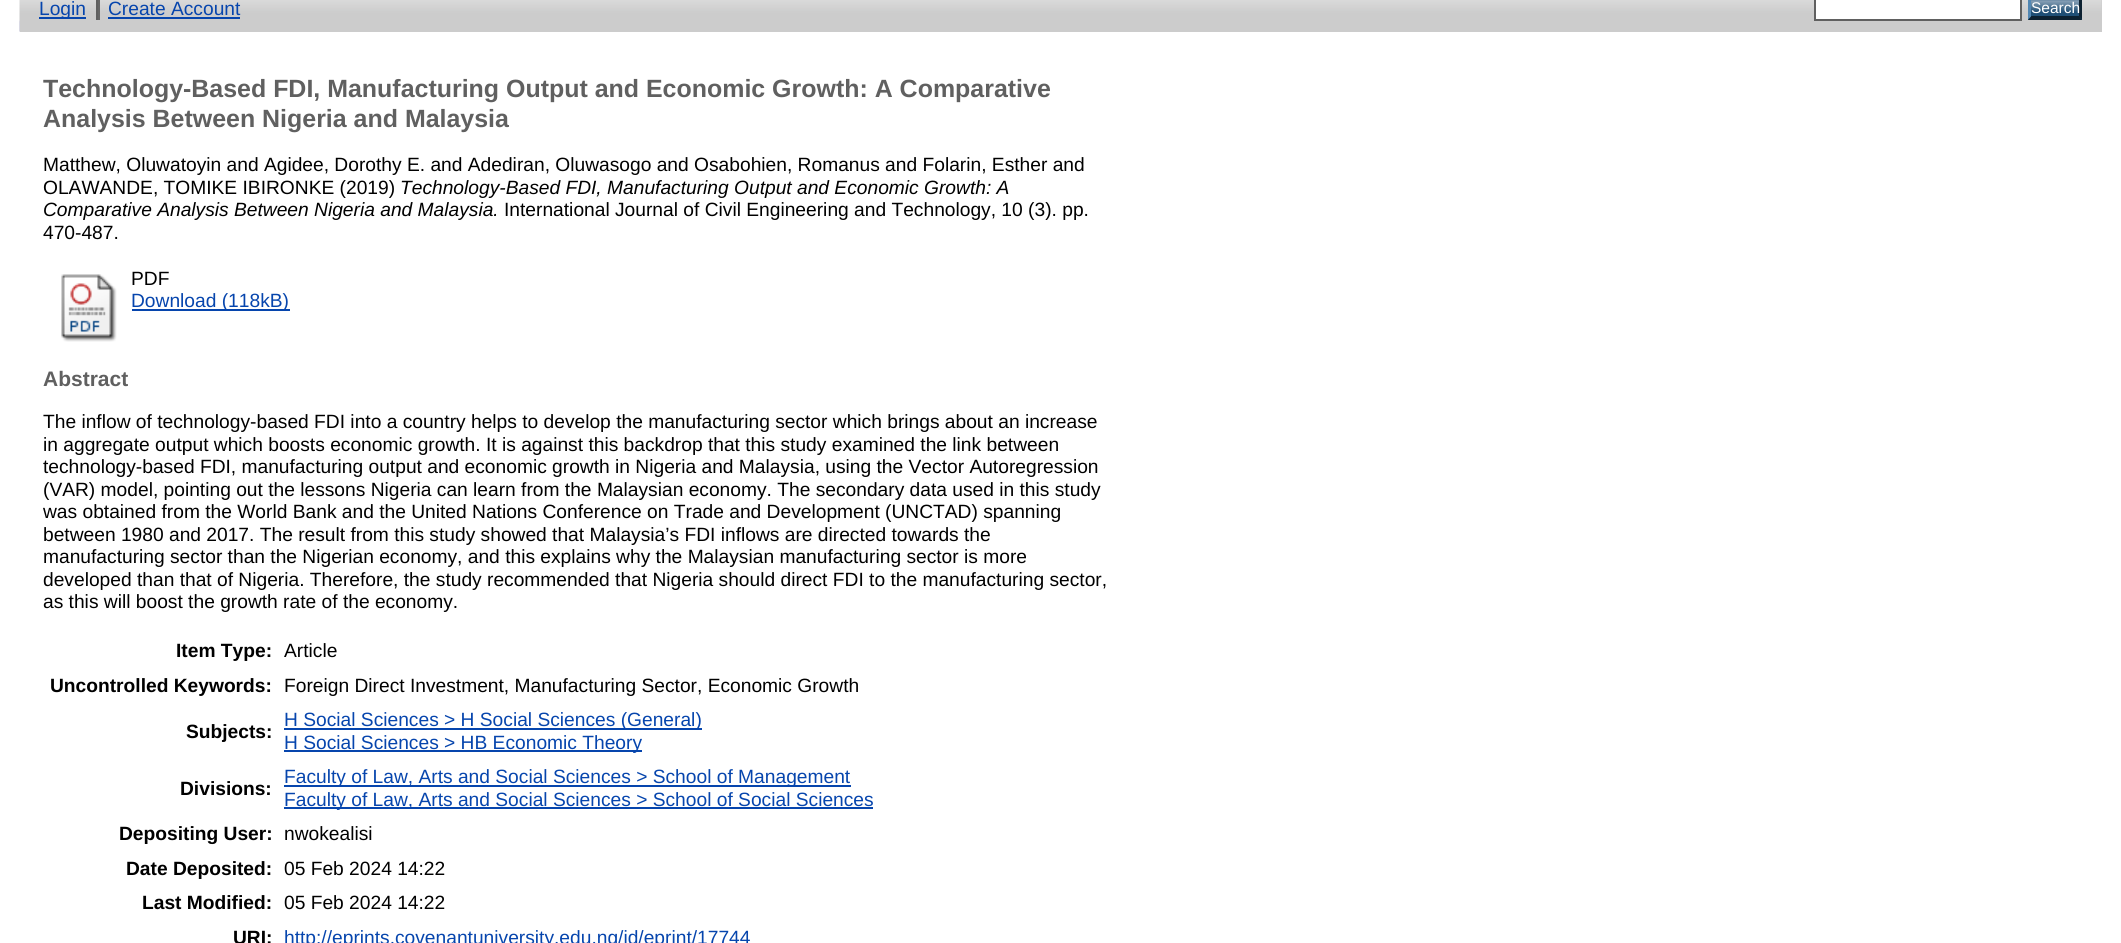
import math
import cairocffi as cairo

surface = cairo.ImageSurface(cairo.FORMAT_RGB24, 2121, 943)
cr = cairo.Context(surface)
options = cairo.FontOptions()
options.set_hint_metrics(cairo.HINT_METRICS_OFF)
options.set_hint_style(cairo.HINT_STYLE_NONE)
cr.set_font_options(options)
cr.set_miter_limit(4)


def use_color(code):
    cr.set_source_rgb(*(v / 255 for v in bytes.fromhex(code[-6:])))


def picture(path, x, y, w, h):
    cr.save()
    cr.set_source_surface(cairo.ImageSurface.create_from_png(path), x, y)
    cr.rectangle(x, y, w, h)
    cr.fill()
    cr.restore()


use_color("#ffffff")
cr.paint()
picture("img1.png", 19, 20, 1, 12)
use_color("#cccccc")
cr.rectangle(20, 0, 2082, 32)
cr.fill()
picture("img2.png", 19, 0, 2083, 32)
use_color("#0645ad")
cr.rectangle(39, 17, 47, 2)
cr.fill()
cr.select_font_face("Liberation Sans")
cr.set_font_size(19.2)
cr.move_to(39, 15)
cr.show_text("Login")
use_color("#606060")
cr.rectangle(96, 0, 2, 20)
cr.fill()
use_color("#0645ad")
cr.move_to(108, 15)
cr.show_text("Create Account")
use_color("#666666")
cr.rectangle(98, 0, 2, 20)
cr.fill()
use_color("#0645ad")
cr.rectangle(108, 17, 132, 2)
cr.fill()
use_color("#ffffff")
cr.rectangle(1815, -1, 206, 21)
cr.fill_preserve()
use_color("#606060")
cr.stroke()
use_color("#1f4f76")
cr.rectangle(2028, 12, 54, 8)
cr.fill()
picture("img3.png", 2031, 0, 48, 12)
use_color("#0d2131")
cr.new_path()
cr.move_to(2082, -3)
cr.line_to(2082, 19.5)
cr.line_to(2079, 16.5)
cr.line_to(2079, 0)
cr.close_path()
cr.fill()
cr.new_path()
cr.move_to(2082, 20)
cr.line_to(2028, 20)
cr.line_to(2031, 16)
cr.line_to(2079, 16)
cr.close_path()
cr.fill()
use_color("#5287b3")
cr.new_path()
cr.move_to(2028, 19.5)
cr.line_to(2028, -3)
cr.line_to(2031, 0)
cr.line_to(2031, 16.5)
cr.close_path()
cr.fill()
cr.set_font_size(15.5)
use_color("#ffffff")
cr.move_to(2031, 13)
cr.show_text("Search")
cr.select_font_face("Liberation Sans", cairo.FONT_SLANT_NORMAL, cairo.FONT_WEIGHT_BOLD)
cr.set_font_size(24.95)
use_color("#606060")
cr.move_to(43, 97)
cr.show_text("Technology‐Based FDI, Manufacturing Output and Economic Growth: A Comparative")
cr.move_to(43, 127)
cr.show_text("Analysis Between Nigeria and Malaysia")
cr.select_font_face("Liberation Sans")
cr.set_font_size(19.2)
use_color("#000000")
cr.move_to(43, 171)
cr.show_text("Matthew, Oluwatoyin and Agidee, Dorothy E. and Adediran, Oluwasogo and Osabohien, Romanus and Folarin, Esther and")
cr.move_to(43, 194)
cr.show_text("OLAWANDE, TOMIKE IBIRONKE (2019)")
cr.select_font_face("Liberation Sans", cairo.FONT_SLANT_ITALIC)
cr.move_to(400, 194)
cr.show_text("Technology‐Based FDI, Manufacturing Output and Economic Growth: A")
cr.move_to(43, 216)
cr.show_text("Comparative Analysis Between Nigeria and Malaysia.")
cr.select_font_face("Liberation Sans")
cr.move_to(504, 216)
cr.show_text("International Journal of Civil Engineering and Technology, 10 (3). pp.")
cr.move_to(43, 239)
cr.show_text("470-487.")
picture("img4.png", 61, 274, 56, 68)
cr.move_to(131, 285)
cr.show_text("PDF")
use_color("#0645ad")
cr.rectangle(132, 309, 158, 2)
cr.fill()
cr.move_to(131, 307)
cr.show_text("Download (118kB)")
cr.select_font_face("Liberation Sans", cairo.FONT_SLANT_NORMAL, cairo.FONT_WEIGHT_BOLD)
cr.set_font_size(21)
use_color("#606060")
cr.move_to(43, 386)
cr.show_text("Abstract")
cr.select_font_face("Liberation Sans")
cr.set_font_size(19.2)
use_color("#000000")
cr.move_to(43, 428)
cr.show_text("The inflow of technology‐based FDI into a country helps to develop the manufacturing sector which brings about an increase")
cr.move_to(43, 451)
cr.show_text("in aggregate output which boosts economic growth. It is against this backdrop that this study examined the link between")
cr.move_to(43, 473)
cr.show_text("technology‐based FDI, manufacturing output and economic growth in Nigeria and Malaysia, using the Vector Autoregression")
cr.move_to(43, 496)
cr.show_text("(VAR) model, pointing out the lessons Nigeria can learn from the Malaysian economy. The secondary data used in this study")
cr.move_to(43, 518)
cr.show_text("was obtained from the World Bank and the United Nations Conference on Trade and Development (UNCTAD) spanning")
cr.move_to(43, 541)
cr.show_text("between 1980 and 2017. The result from this study showed that Malaysia’s FDI inflows are directed towards the")
cr.move_to(43, 563)
cr.show_text("manufacturing sector than the Nigerian economy, and this explains why the Malaysian manufacturing sector is more")
cr.move_to(43, 586)
cr.show_text("developed than that of Nigeria. Therefore, the study recommended that Nigeria should direct FDI to the manufacturing sector,")
cr.move_to(43, 608)
cr.show_text("as this will boost the growth rate of the economy.")
cr.select_font_face("Liberation Sans", cairo.FONT_SLANT_NORMAL, cairo.FONT_WEIGHT_BOLD)
cr.move_to(176, 657)
cr.show_text("Item Type:")
cr.select_font_face("Liberation Sans")
cr.move_to(284, 657)
cr.show_text("Article")
cr.select_font_face("Liberation Sans", cairo.FONT_SLANT_NORMAL, cairo.FONT_WEIGHT_BOLD)
cr.move_to(50, 692)
cr.show_text("Uncontrolled Keywords:")
cr.select_font_face("Liberation Sans")
cr.move_to(284, 692)
cr.show_text("Foreign Direct Investment, Manufacturing Sector, Economic Growth")
cr.select_font_face("Liberation Sans", cairo.FONT_SLANT_NORMAL, cairo.FONT_WEIGHT_BOLD)
cr.move_to(186, 738)
cr.show_text("Subjects:")
use_color("#0645ad")
cr.rectangle(284, 728, 418, 2)
cr.fill()
cr.select_font_face("Liberation Sans")
cr.move_to(284, 726)
cr.show_text("H Social Sciences > H Social Sciences (General)")
cr.rectangle(284, 750, 358, 2)
cr.fill()
cr.move_to(284, 749)
cr.show_text("H Social Sciences > HB Economic Theory")
cr.select_font_face("Liberation Sans", cairo.FONT_SLANT_NORMAL, cairo.FONT_WEIGHT_BOLD)
use_color("#000000")
cr.move_to(180, 795)
cr.show_text("Divisions:")
use_color("#0645ad")
cr.rectangle(284, 785, 567, 2)
cr.fill()
cr.select_font_face("Liberation Sans")
cr.move_to(284, 783)
cr.show_text("Faculty of Law, Arts and Social Sciences > School of Management")
cr.rectangle(284, 807, 589, 2)
cr.fill()
cr.move_to(284, 806)
cr.show_text("Faculty of Law, Arts and Social Sciences > School of Social Sciences")
cr.select_font_face("Liberation Sans", cairo.FONT_SLANT_NORMAL, cairo.FONT_WEIGHT_BOLD)
use_color("#000000")
cr.move_to(119, 840)
cr.show_text("Depositing User:")
cr.select_font_face("Liberation Sans")
cr.move_to(284, 840)
cr.show_text("nwokealisi")
cr.select_font_face("Liberation Sans", cairo.FONT_SLANT_NORMAL, cairo.FONT_WEIGHT_BOLD)
cr.move_to(126, 875)
cr.show_text("Date Deposited:")
cr.select_font_face("Liberation Sans")
cr.move_to(284, 875)
cr.show_text("05 Feb 2024 14:22")
cr.select_font_face("Liberation Sans", cairo.FONT_SLANT_NORMAL, cairo.FONT_WEIGHT_BOLD)
cr.move_to(142, 909)
cr.show_text("Last Modified:")
cr.select_font_face("Liberation Sans")
cr.move_to(284, 909)
cr.show_text("05 Feb 2024 14:22")
cr.select_font_face("Liberation Sans", cairo.FONT_SLANT_NORMAL, cairo.FONT_WEIGHT_BOLD)
cr.move_to(233, 944)
cr.show_text("URI:")
cr.select_font_face("Liberation Sans")
use_color("#0645ad")
cr.move_to(284, 944)
cr.show_text("http://eprints.covenantuniversity.edu.ng/id/eprint/17744")
surface.write_to_png("result.png")
